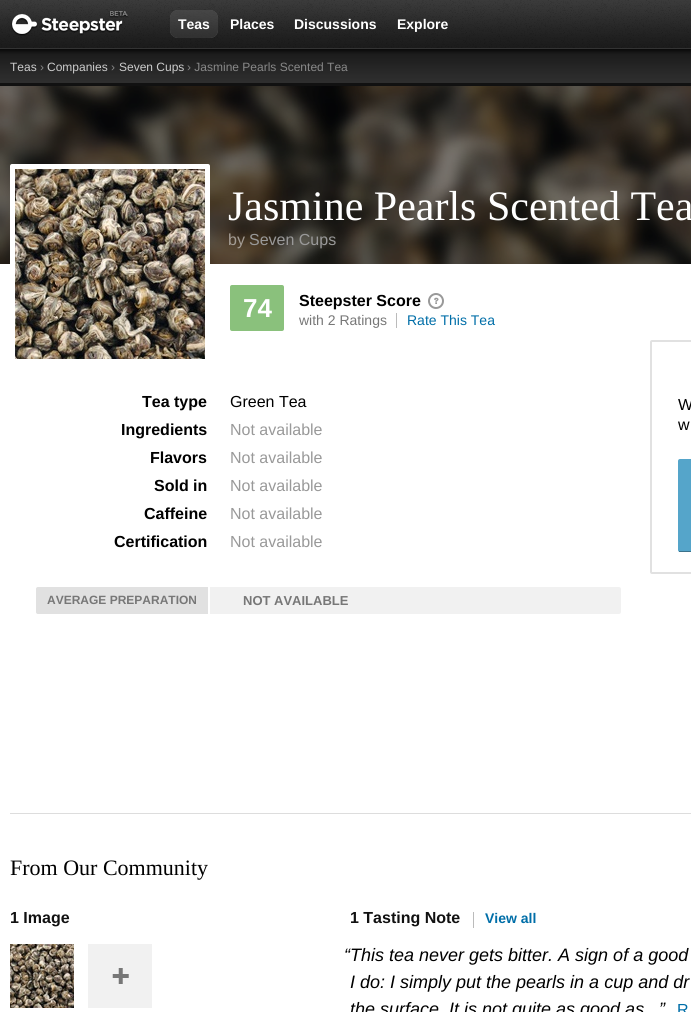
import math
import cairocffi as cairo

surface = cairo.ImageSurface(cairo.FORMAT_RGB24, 691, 1012)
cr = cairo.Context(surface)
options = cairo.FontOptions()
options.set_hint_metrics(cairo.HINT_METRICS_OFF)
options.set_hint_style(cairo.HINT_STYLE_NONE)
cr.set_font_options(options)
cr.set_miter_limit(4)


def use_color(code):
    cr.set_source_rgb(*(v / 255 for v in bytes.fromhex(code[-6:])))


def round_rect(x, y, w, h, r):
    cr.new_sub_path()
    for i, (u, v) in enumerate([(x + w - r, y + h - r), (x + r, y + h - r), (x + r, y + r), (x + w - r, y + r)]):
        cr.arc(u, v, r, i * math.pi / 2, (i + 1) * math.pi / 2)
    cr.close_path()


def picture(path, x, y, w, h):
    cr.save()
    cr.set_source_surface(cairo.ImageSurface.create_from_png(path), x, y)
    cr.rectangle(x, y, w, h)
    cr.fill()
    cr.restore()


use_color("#ffffff")
cr.paint()
picture("img1.png", 0, 0, 691, 48)
picture("img2.png", 11, 11, 117, 25)
use_color("#555555")
round_rect(170, 10, 48, 28, 8)
cr.fill()
picture("img3.png", 170, 10, 48, 28)
cr.select_font_face("Liberation Sans", cairo.FONT_SLANT_NORMAL, cairo.FONT_WEIGHT_BOLD)
cr.set_font_size(14)
use_color("#ffffff")
cr.move_to(178, 29)
cr.show_text("Teas")
cr.move_to(230, 29)
cr.show_text("Places")
cr.move_to(294, 29)
cr.show_text("Discussions")
cr.move_to(397, 29)
cr.show_text("Explore")
use_color("#111111")
cr.rectangle(0, 83, 691, 3)
cr.fill()
picture("img4.png", 0, 49, 691, 34)
use_color("#333333")
cr.rectangle(0, 48, 691, 1)
cr.fill()
cr.select_font_face("Liberation Sans")
cr.set_font_size(12)
use_color("#cccccc")
cr.move_to(10, 71)
cr.show_text("Teas")
use_color("#888888")
cr.move_to(40, 71)
cr.show_text("›")
use_color("#cccccc")
cr.move_to(47, 71)
cr.show_text("Companies")
use_color("#888888")
cr.move_to(111, 71)
cr.show_text("›")
use_color("#cccccc")
cr.move_to(119, 71)
cr.show_text("Seven Cups")
use_color("#888888")
cr.move_to(187, 71)
cr.show_text("› Jasmine Pearls Scented Tea")
picture("img5.png", 0, 86, 691, 178)
use_color("#ffffff")
round_rect(10, 164, 200, 200, 2)
cr.fill()
picture("img6.png", 15, 169, 190, 190)
cr.select_font_face("Liberation Serif")
cr.set_font_size(42)
cr.move_to(228, 220)
cr.show_text("Jasmine Pearls Scented Tea")
cr.select_font_face("Liberation Sans")
cr.set_font_size(16)
use_color("#a39c94")
cr.move_to(228, 245)
cr.show_text("by")
use_color("#999999")
cr.move_to(249, 245)
cr.show_text("Seven Cups")
use_color("#8ac17c")
round_rect(230, 285, 54, 46, 2)
cr.fill()
cr.select_font_face("Liberation Sans", cairo.FONT_SLANT_NORMAL, cairo.FONT_WEIGHT_BOLD)
cr.set_font_size(26)
use_color("#ffffff")
cr.move_to(243, 317)
cr.show_text("74")
cr.set_font_size(16)
use_color("#000000")
cr.move_to(299, 306)
cr.show_text("Steepster Score")
picture("img7.png", 428, 293, 16, 16)
cr.select_font_face("Liberation Sans")
cr.set_font_size(14)
use_color("#777777")
cr.move_to(299, 325)
cr.show_text("with 2 Ratings")
use_color("#bbbbbb")
cr.rectangle(396, 313, 1, 15)
cr.fill()
use_color("#006ea8")
cr.move_to(407, 325)
cr.show_text("Rate This Tea")
cr.select_font_face("Liberation Sans", cairo.FONT_SLANT_NORMAL, cairo.FONT_WEIGHT_BOLD)
cr.set_font_size(16)
use_color("#000000")
cr.move_to(142, 407)
cr.show_text("Tea type")
cr.select_font_face("Liberation Sans")
cr.move_to(230, 407)
cr.show_text("Green Tea")
cr.select_font_face("Liberation Sans", cairo.FONT_SLANT_NORMAL, cairo.FONT_WEIGHT_BOLD)
cr.move_to(121, 435)
cr.show_text("Ingredients")
cr.select_font_face("Liberation Sans")
use_color("#999999")
cr.move_to(230, 435)
cr.show_text("Not available")
cr.select_font_face("Liberation Sans", cairo.FONT_SLANT_NORMAL, cairo.FONT_WEIGHT_BOLD)
use_color("#000000")
cr.move_to(150, 463)
cr.show_text("Flavors")
cr.select_font_face("Liberation Sans")
use_color("#999999")
cr.move_to(230, 463)
cr.show_text("Not available")
cr.select_font_face("Liberation Sans", cairo.FONT_SLANT_NORMAL, cairo.FONT_WEIGHT_BOLD)
use_color("#000000")
cr.move_to(154, 491)
cr.show_text("Sold in")
cr.select_font_face("Liberation Sans")
use_color("#999999")
cr.move_to(230, 491)
cr.show_text("Not available")
cr.select_font_face("Liberation Sans", cairo.FONT_SLANT_NORMAL, cairo.FONT_WEIGHT_BOLD)
use_color("#000000")
cr.move_to(144, 519)
cr.show_text("Caffeine")
cr.select_font_face("Liberation Sans")
use_color("#999999")
cr.move_to(230, 519)
cr.show_text("Not available")
cr.select_font_face("Liberation Sans", cairo.FONT_SLANT_NORMAL, cairo.FONT_WEIGHT_BOLD)
use_color("#000000")
cr.move_to(114, 547)
cr.show_text("Certification")
cr.select_font_face("Liberation Sans")
use_color("#999999")
cr.move_to(230, 547)
cr.show_text("Not available")
use_color("#f1f1f1")
round_rect(36, 587, 585, 27, 2)
cr.fill()
use_color("#e1e1e1")
cr.new_path()
cr.move_to(38, 587)
cr.line_to(210, 587)
cr.line_to(210, 614)
cr.line_to(38, 614)
cr.curve_to(37, 614, 36, 613, 36, 612)
cr.line_to(36, 589)
cr.curve_to(36, 588, 37, 587, 38, 587)
cr.close_path()
cr.fill()
use_color("#ffffff")
cr.rectangle(208, 587, 2, 27)
cr.fill()
cr.select_font_face("Liberation Sans", cairo.FONT_SLANT_NORMAL, cairo.FONT_WEIGHT_BOLD)
cr.set_font_size(12)
use_color("#777777")
cr.move_to(47, 604)
cr.show_text("AVERAGE PREPARATION")
cr.set_font_size(13)
cr.move_to(243, 605)
cr.show_text("NOT AVAILABLE")
round_rect(651, 341, 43, 232, 1)
use_color("#e1e1e1")
cr.stroke()
cr.select_font_face("Liberation Sans")
cr.set_font_size(16)
use_color("#000000")
cr.move_to(678, 410)
cr.show_text("W")
cr.move_to(678, 430)
cr.show_text("w")
use_color("#55a5ca")
round_rect(678, 459, 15, 93, 2)
cr.fill()
use_color("#3c728b")
cr.rectangle(679, 551, 12, 1)
cr.fill()
use_color("#dddddd")
cr.rectangle(10, 813, 681, 1)
cr.fill()
cr.select_font_face("Liberation Serif")
cr.set_font_size(22)
use_color("#000000")
cr.move_to(10, 875)
cr.show_text("From Our Community")
cr.select_font_face("Liberation Sans", cairo.FONT_SLANT_NORMAL, cairo.FONT_WEIGHT_BOLD)
cr.set_font_size(16)
use_color("#111111")
cr.move_to(10, 923)
cr.show_text("1 Image")
picture("img8.png", 10, 944, 64, 64)
use_color("#f1f1f1")
cr.rectangle(88, 944, 64, 64)
cr.fill()
picture("img9.png", 112, 968, 17, 16)
use_color("#111111")
cr.move_to(350, 923)
cr.show_text("1 Tasting Note")
use_color("#bbbbbb")
cr.rectangle(473, 912, 1, 16)
cr.fill()
cr.set_font_size(14)
use_color("#006ea8")
cr.move_to(485, 923)
cr.show_text("View all")
cr.select_font_face("Liberation Sans", cairo.FONT_SLANT_ITALIC)
cr.set_font_size(18)
use_color("#000000")
cr.move_to(344, 961)
cr.show_text("“This tea never gets bitter. A sign of a good")
cr.move_to(350, 988)
cr.show_text("I do: I simply put the pearls in a cup and dr")
cr.move_to(350, 1015)
cr.show_text("the surface")
cr.move_to(449, 1015)
cr.show_text("It is not quite as good as")
cr.move_to(659, 1015)
cr.show_text("”")
cr.select_font_face("Liberation Sans")
cr.set_font_size(16)
use_color("#006ea8")
cr.move_to(677, 1015)
cr.show_text("R")
surface.write_to_png("result.png")
